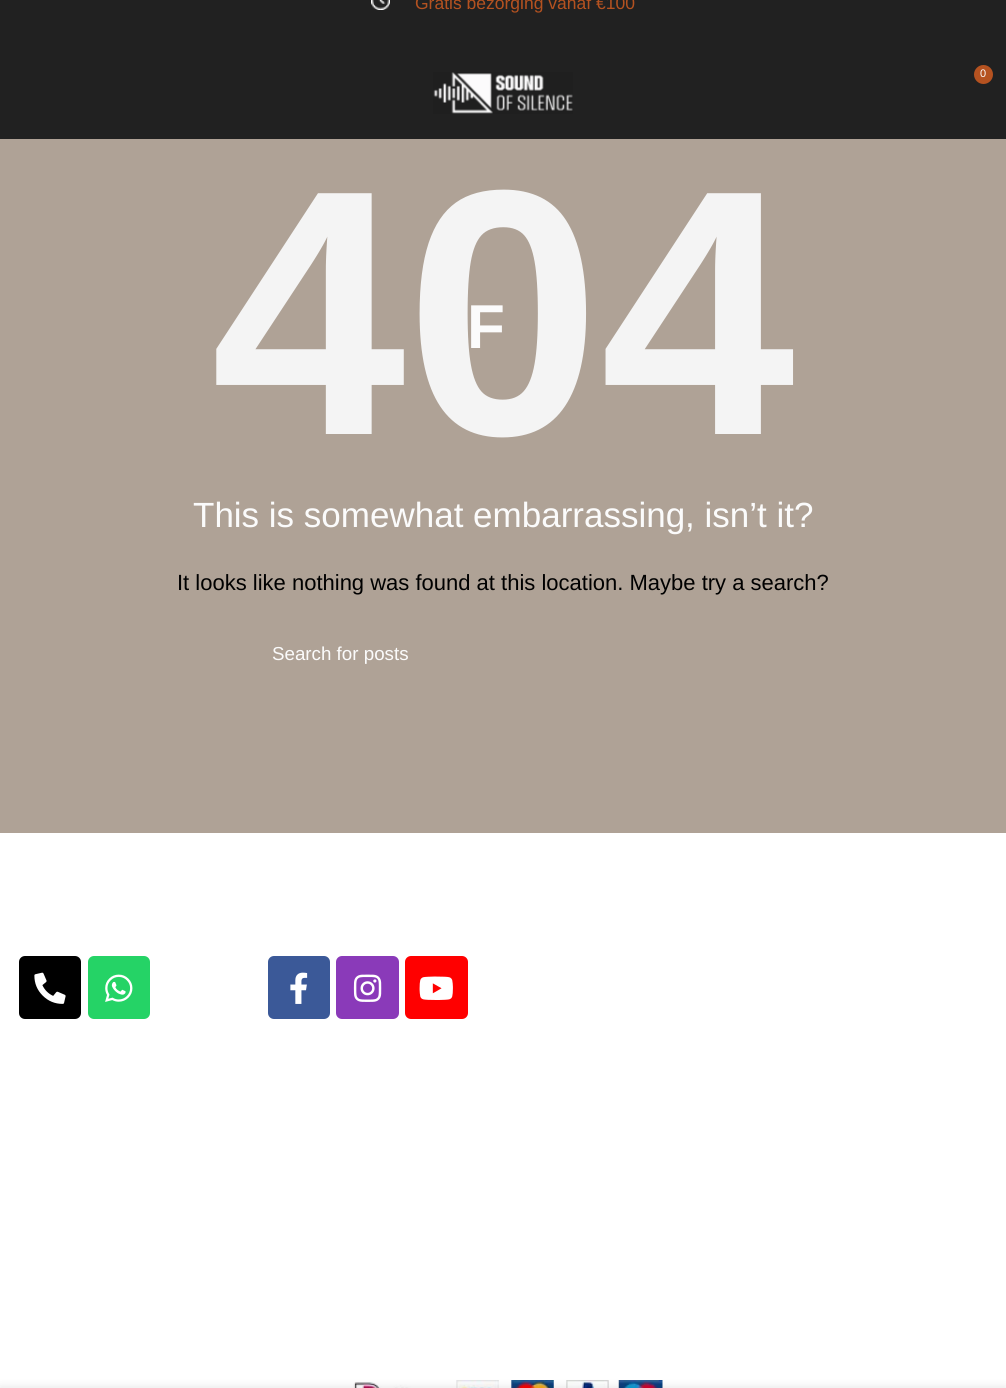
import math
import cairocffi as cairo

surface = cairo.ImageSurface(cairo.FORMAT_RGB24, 1006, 1388)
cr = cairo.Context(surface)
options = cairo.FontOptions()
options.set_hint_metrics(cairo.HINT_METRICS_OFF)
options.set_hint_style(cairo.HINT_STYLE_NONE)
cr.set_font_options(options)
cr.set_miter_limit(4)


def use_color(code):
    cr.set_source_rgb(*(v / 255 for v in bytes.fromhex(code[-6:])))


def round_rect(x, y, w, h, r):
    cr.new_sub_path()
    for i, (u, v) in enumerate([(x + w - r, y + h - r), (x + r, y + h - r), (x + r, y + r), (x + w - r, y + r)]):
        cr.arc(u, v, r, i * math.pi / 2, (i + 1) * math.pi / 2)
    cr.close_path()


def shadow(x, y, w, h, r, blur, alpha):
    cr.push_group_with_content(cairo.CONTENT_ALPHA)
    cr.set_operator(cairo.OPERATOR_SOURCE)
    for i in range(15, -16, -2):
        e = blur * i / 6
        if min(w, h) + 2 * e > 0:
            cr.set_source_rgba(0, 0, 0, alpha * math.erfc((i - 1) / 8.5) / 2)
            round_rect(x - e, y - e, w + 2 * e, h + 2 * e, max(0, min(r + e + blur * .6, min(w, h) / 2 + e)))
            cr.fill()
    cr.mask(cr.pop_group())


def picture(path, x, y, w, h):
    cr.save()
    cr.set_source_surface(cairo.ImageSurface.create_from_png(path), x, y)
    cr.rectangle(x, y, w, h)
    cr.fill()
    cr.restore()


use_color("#ffffff")
cr.paint()
use_color("#212121")
cr.rectangle(0, 0, 1006, 139)
cr.fill()
picture("img1.png", 371, 0, 19, 10)
cr.select_font_face("Liberation Sans")
cr.set_font_size(17.5)
use_color("#b55220")
cr.move_to(415, 9)
cr.show_text("Gratis bezorging vanaf €100")
picture("img2.png", 433, 72, 140, 42)
cr.arc(983.5, 74.5, 9.5, 0, 2 * math.pi)
cr.fill()
cr.set_font_size(11)
use_color("#fbfbfb")
cr.move_to(980, 77)
cr.show_text("0")
use_color("#afa296")
cr.rectangle(0, 139, 1006, 694)
cr.fill()
cr.select_font_face("Liberation Sans", cairo.FONT_SLANT_NORMAL, cairo.FONT_WEIGHT_BOLD)
cr.set_font_size(350)
use_color("#f4f4f4")
cr.move_to(211, 434)
cr.show_text("404")
cr.set_font_size(62)
use_color("#fbfbfb")
cr.move_to(467, 348)
cr.show_text("F")
cr.select_font_face("Liberation Sans")
cr.set_font_size(35)
cr.move_to(193, 527)
cr.show_text("This is somewhat embarrassing, isn’t it?")
cr.set_font_size(22)
use_color("#000000")
cr.move_to(177, 590)
cr.show_text("It looks like nothing was found at this location. Maybe try a search?")
cr.set_font_size(18.75)
use_color("#fbfbfb")
cr.move_to(272, 660)
cr.show_text("Search for posts")
use_color("#000000")
round_rect(19, 956, 62, 63, 6)
cr.fill()
picture("img3.png", 34, 972, 32, 32)
use_color("#25d366")
round_rect(88, 956, 62, 63, 6)
cr.fill()
picture("img4.png", 105, 974, 28, 28)
use_color("#3b5998")
round_rect(268, 956, 62, 63, 6)
cr.fill()
picture("img5.png", 290, 972, 18, 32)
use_color("#8a3ab9")
round_rect(336, 956, 63, 63, 6)
cr.fill()
picture("img6.png", 353, 974, 29, 28)
use_color("#ff0000")
round_rect(405, 956, 63, 63, 6)
cr.fill()
picture("img7.png", 419, 976, 34, 24)
picture("img8.png", 353, 1380, 310, 8)
use_color("#000000")
shadow(0, 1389, 1006, 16, 0, 5.5, 0.14)
surface.write_to_png("result.png")
